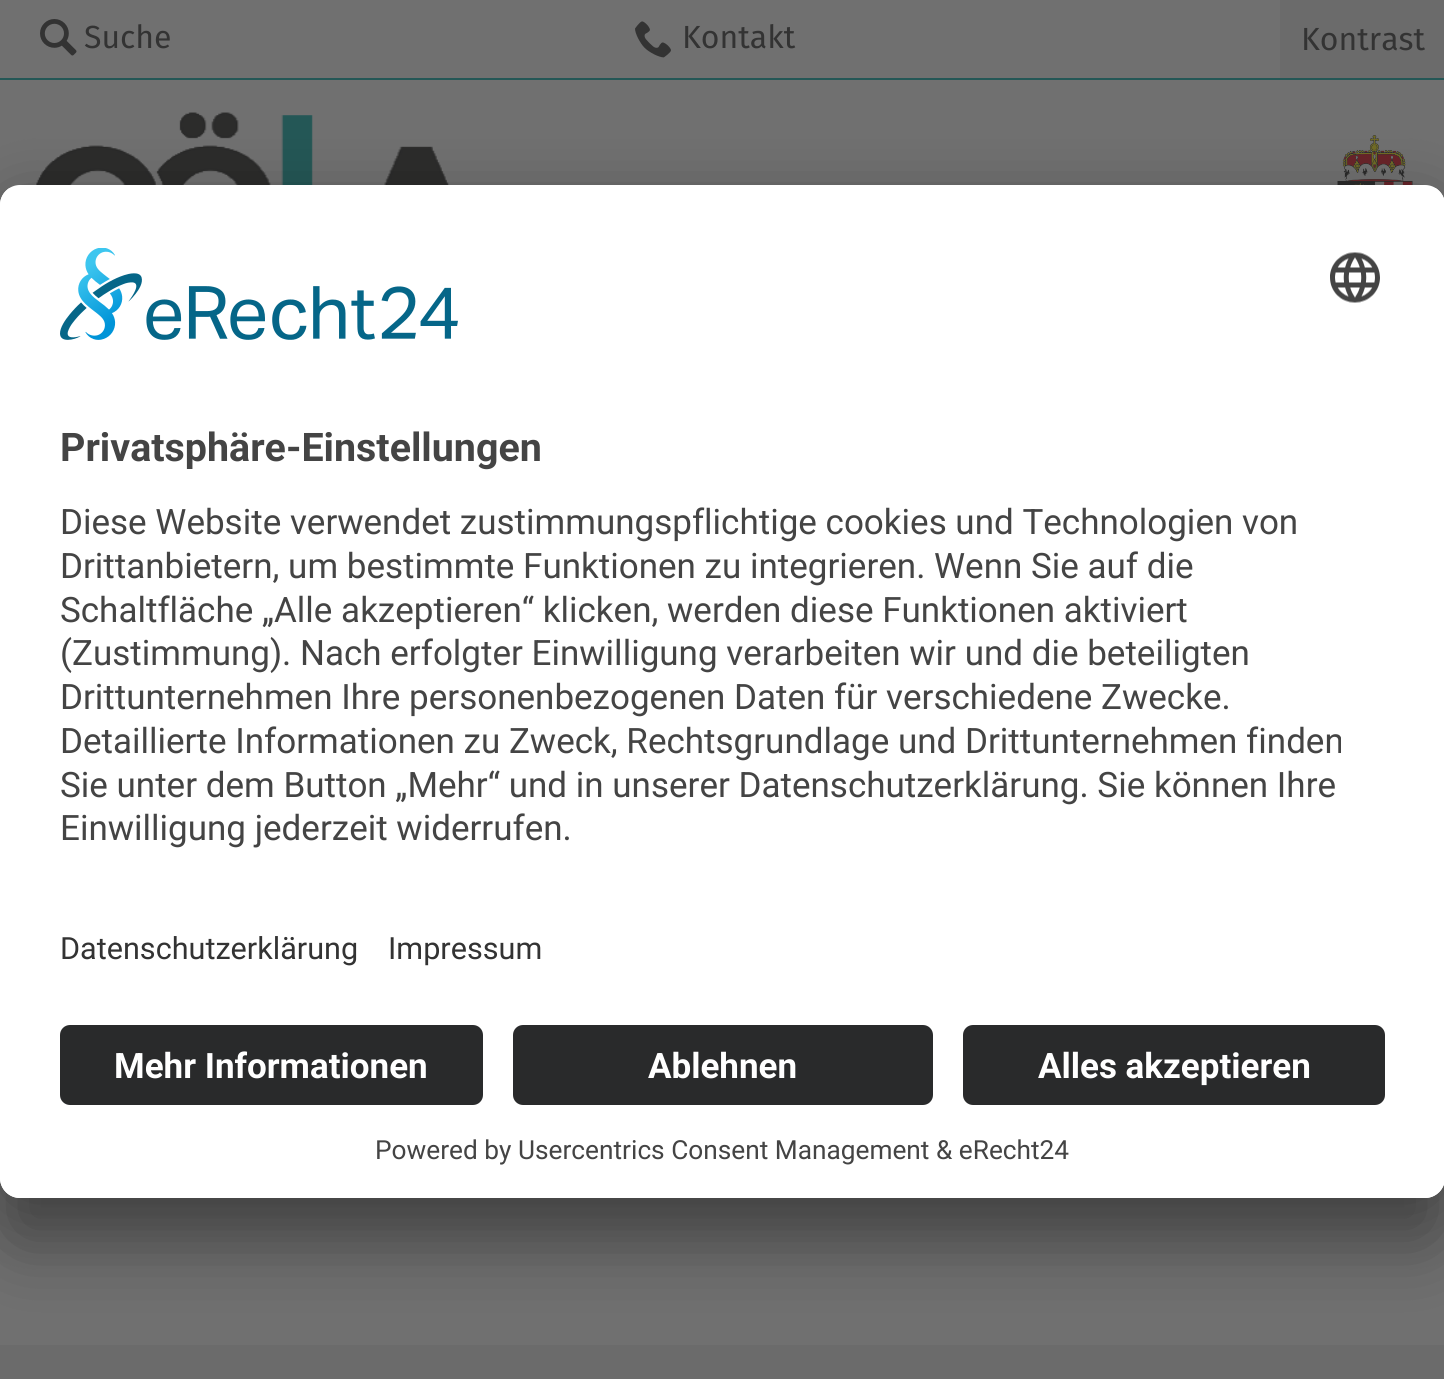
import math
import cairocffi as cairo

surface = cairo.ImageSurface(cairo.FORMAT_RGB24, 1444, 1379)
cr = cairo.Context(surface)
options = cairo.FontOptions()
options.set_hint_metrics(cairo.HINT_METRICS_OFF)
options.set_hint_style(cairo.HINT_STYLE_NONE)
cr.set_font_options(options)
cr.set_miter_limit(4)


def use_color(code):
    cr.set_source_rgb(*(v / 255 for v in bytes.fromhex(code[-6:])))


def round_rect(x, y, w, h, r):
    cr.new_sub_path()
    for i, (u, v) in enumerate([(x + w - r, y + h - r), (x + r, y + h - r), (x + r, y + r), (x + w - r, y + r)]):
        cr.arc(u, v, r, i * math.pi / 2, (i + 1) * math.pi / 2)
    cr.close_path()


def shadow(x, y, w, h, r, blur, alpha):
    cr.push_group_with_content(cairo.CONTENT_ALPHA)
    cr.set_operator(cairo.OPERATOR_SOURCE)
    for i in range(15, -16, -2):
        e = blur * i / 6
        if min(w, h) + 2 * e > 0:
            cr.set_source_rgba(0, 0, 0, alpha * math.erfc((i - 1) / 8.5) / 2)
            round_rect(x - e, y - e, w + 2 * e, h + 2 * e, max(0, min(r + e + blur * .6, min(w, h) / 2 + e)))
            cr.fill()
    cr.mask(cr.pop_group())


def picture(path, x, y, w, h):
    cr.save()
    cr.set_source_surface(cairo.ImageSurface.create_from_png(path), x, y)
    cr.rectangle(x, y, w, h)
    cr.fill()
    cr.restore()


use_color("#707070")
cr.paint()
picture("img1.png", 40, 19, 37, 37)
cr.select_font_face("Fira Sans")
cr.set_font_size(32)
use_color("#333333")
cr.move_to(84, 48)
cr.show_text("Suche")
picture("img2.png", 635, 21, 36, 37)
cr.move_to(682, 48)
cr.show_text("Kontakt")
use_color("#6b6b6b")
cr.rectangle(1280, 0, 164, 78)
cr.fill()
use_color("#333333")
cr.move_to(1301, 50)
cr.show_text("Kontrast")
use_color("#245756")
cr.rectangle(0, 78, 1444, 2)
cr.fill()
picture("img3.png", 36, 112, 414, 73)
picture("img4.png", 1337, 135, 76, 50)
use_color("#6b6b6b")
cr.rectangle(0, 1345, 1444, 34)
cr.fill()
use_color("#000000")
shadow(0, 235, 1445, 1013, 20, 35, 0.3)
shadow(0, 198, 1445, 1012, 20, 32.5, 0.22)
use_color("#ffffff")
round_rect(0, 185, 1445, 1013, 20)
cr.fill()
cr.save()
round_rect(0, 185, 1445, 1013, 20)
cr.clip()
cr.new_path()
cr.move_to(20, 185)
cr.line_to(1425, 185)
cr.curve_to(1436, 185, 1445, 194, 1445, 205)
cr.line_to(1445, 1005)
cr.line_to(0, 1005)
cr.line_to(0, 205)
cr.curve_to(0, 194, 9, 185, 20, 185)
cr.close_path()
cr.clip()
cr.rectangle(0, 188, 1444, 817)
cr.fill()
cr.restore()
picture("img5.png", 60, 248, 398, 92)
picture("img6.png", 1330, 252, 50, 51)
cr.select_font_face("Roboto", cairo.FONT_SLANT_NORMAL, cairo.FONT_WEIGHT_BOLD)
cr.set_font_size(39.4)
use_color("#444444")
cr.move_to(60, 461)
cr.show_text("Privatsphäre-Einstellungen")
cr.select_font_face("Roboto")
cr.set_font_size(35)
cr.move_to(60, 534)
cr.show_text("Diese Website verwendet zustimmungspflichtige cookies und Technologien von")
cr.move_to(60, 578)
cr.show_text("Drittanbietern, um bestimmte Funktionen zu integrieren. Wenn Sie auf die")
cr.move_to(60, 622)
cr.show_text("Schaltfläche „Alle akzeptieren“ klicken, werden diese Funktionen aktiviert")
cr.move_to(60, 665)
cr.show_text("(Zustimmung). Nach erfolgter Einwilligung verarbeiten wir und die beteiligten")
cr.move_to(60, 709)
cr.show_text("Drittunternehmen Ihre personenbezogenen Daten für verschiedene Zwecke.")
cr.move_to(60, 753)
cr.show_text("Detaillierte Informationen zu Zweck, Rechtsgrundlage und Drittunternehmen finden")
cr.move_to(60, 797)
cr.show_text("Sie unter dem Button „Mehr“ und in unserer Datenschutzerklärung. Sie können Ihre")
cr.move_to(60, 840)
cr.show_text("Einwilligung jederzeit widerrufen.")
cr.set_font_size(30.6)
use_color("#333333")
cr.move_to(60, 959)
cr.show_text("Datenschutzerklärung")
cr.move_to(388, 959)
cr.show_text("Impressum")
use_color("#ffffff")
cr.new_path()
cr.move_to(0, 1005)
cr.line_to(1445, 1005)
cr.line_to(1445, 1178)
cr.curve_to(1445, 1189, 1436, 1198, 1425, 1198)
cr.line_to(20, 1198)
cr.curve_to(9, 1198, 0, 1189, 0, 1178)
cr.close_path()
cr.fill()
use_color("#292a2b")
round_rect(60, 1025, 423, 80, 10)
cr.fill()
cr.select_font_face("Roboto", cairo.FONT_SLANT_NORMAL, cairo.FONT_WEIGHT_BOLD)
cr.set_font_size(35)
use_color("#ffffff")
cr.move_to(114, 1078)
cr.show_text("Mehr Informationen")
use_color("#292a2b")
round_rect(513, 1025, 420, 80, 10)
cr.fill()
use_color("#ffffff")
cr.move_to(648, 1078)
cr.show_text("Ablehnen")
use_color("#292a2b")
round_rect(963, 1025, 422, 80, 10)
cr.fill()
use_color("#ffffff")
cr.move_to(1038, 1078)
cr.show_text("Alles akzeptieren")
cr.select_font_face("Roboto")
cr.set_font_size(26.25)
use_color("#444444")
cr.move_to(375, 1159)
cr.show_text("Powered by Usercentrics Consent Management & eRecht24")
surface.write_to_png("result.png")
